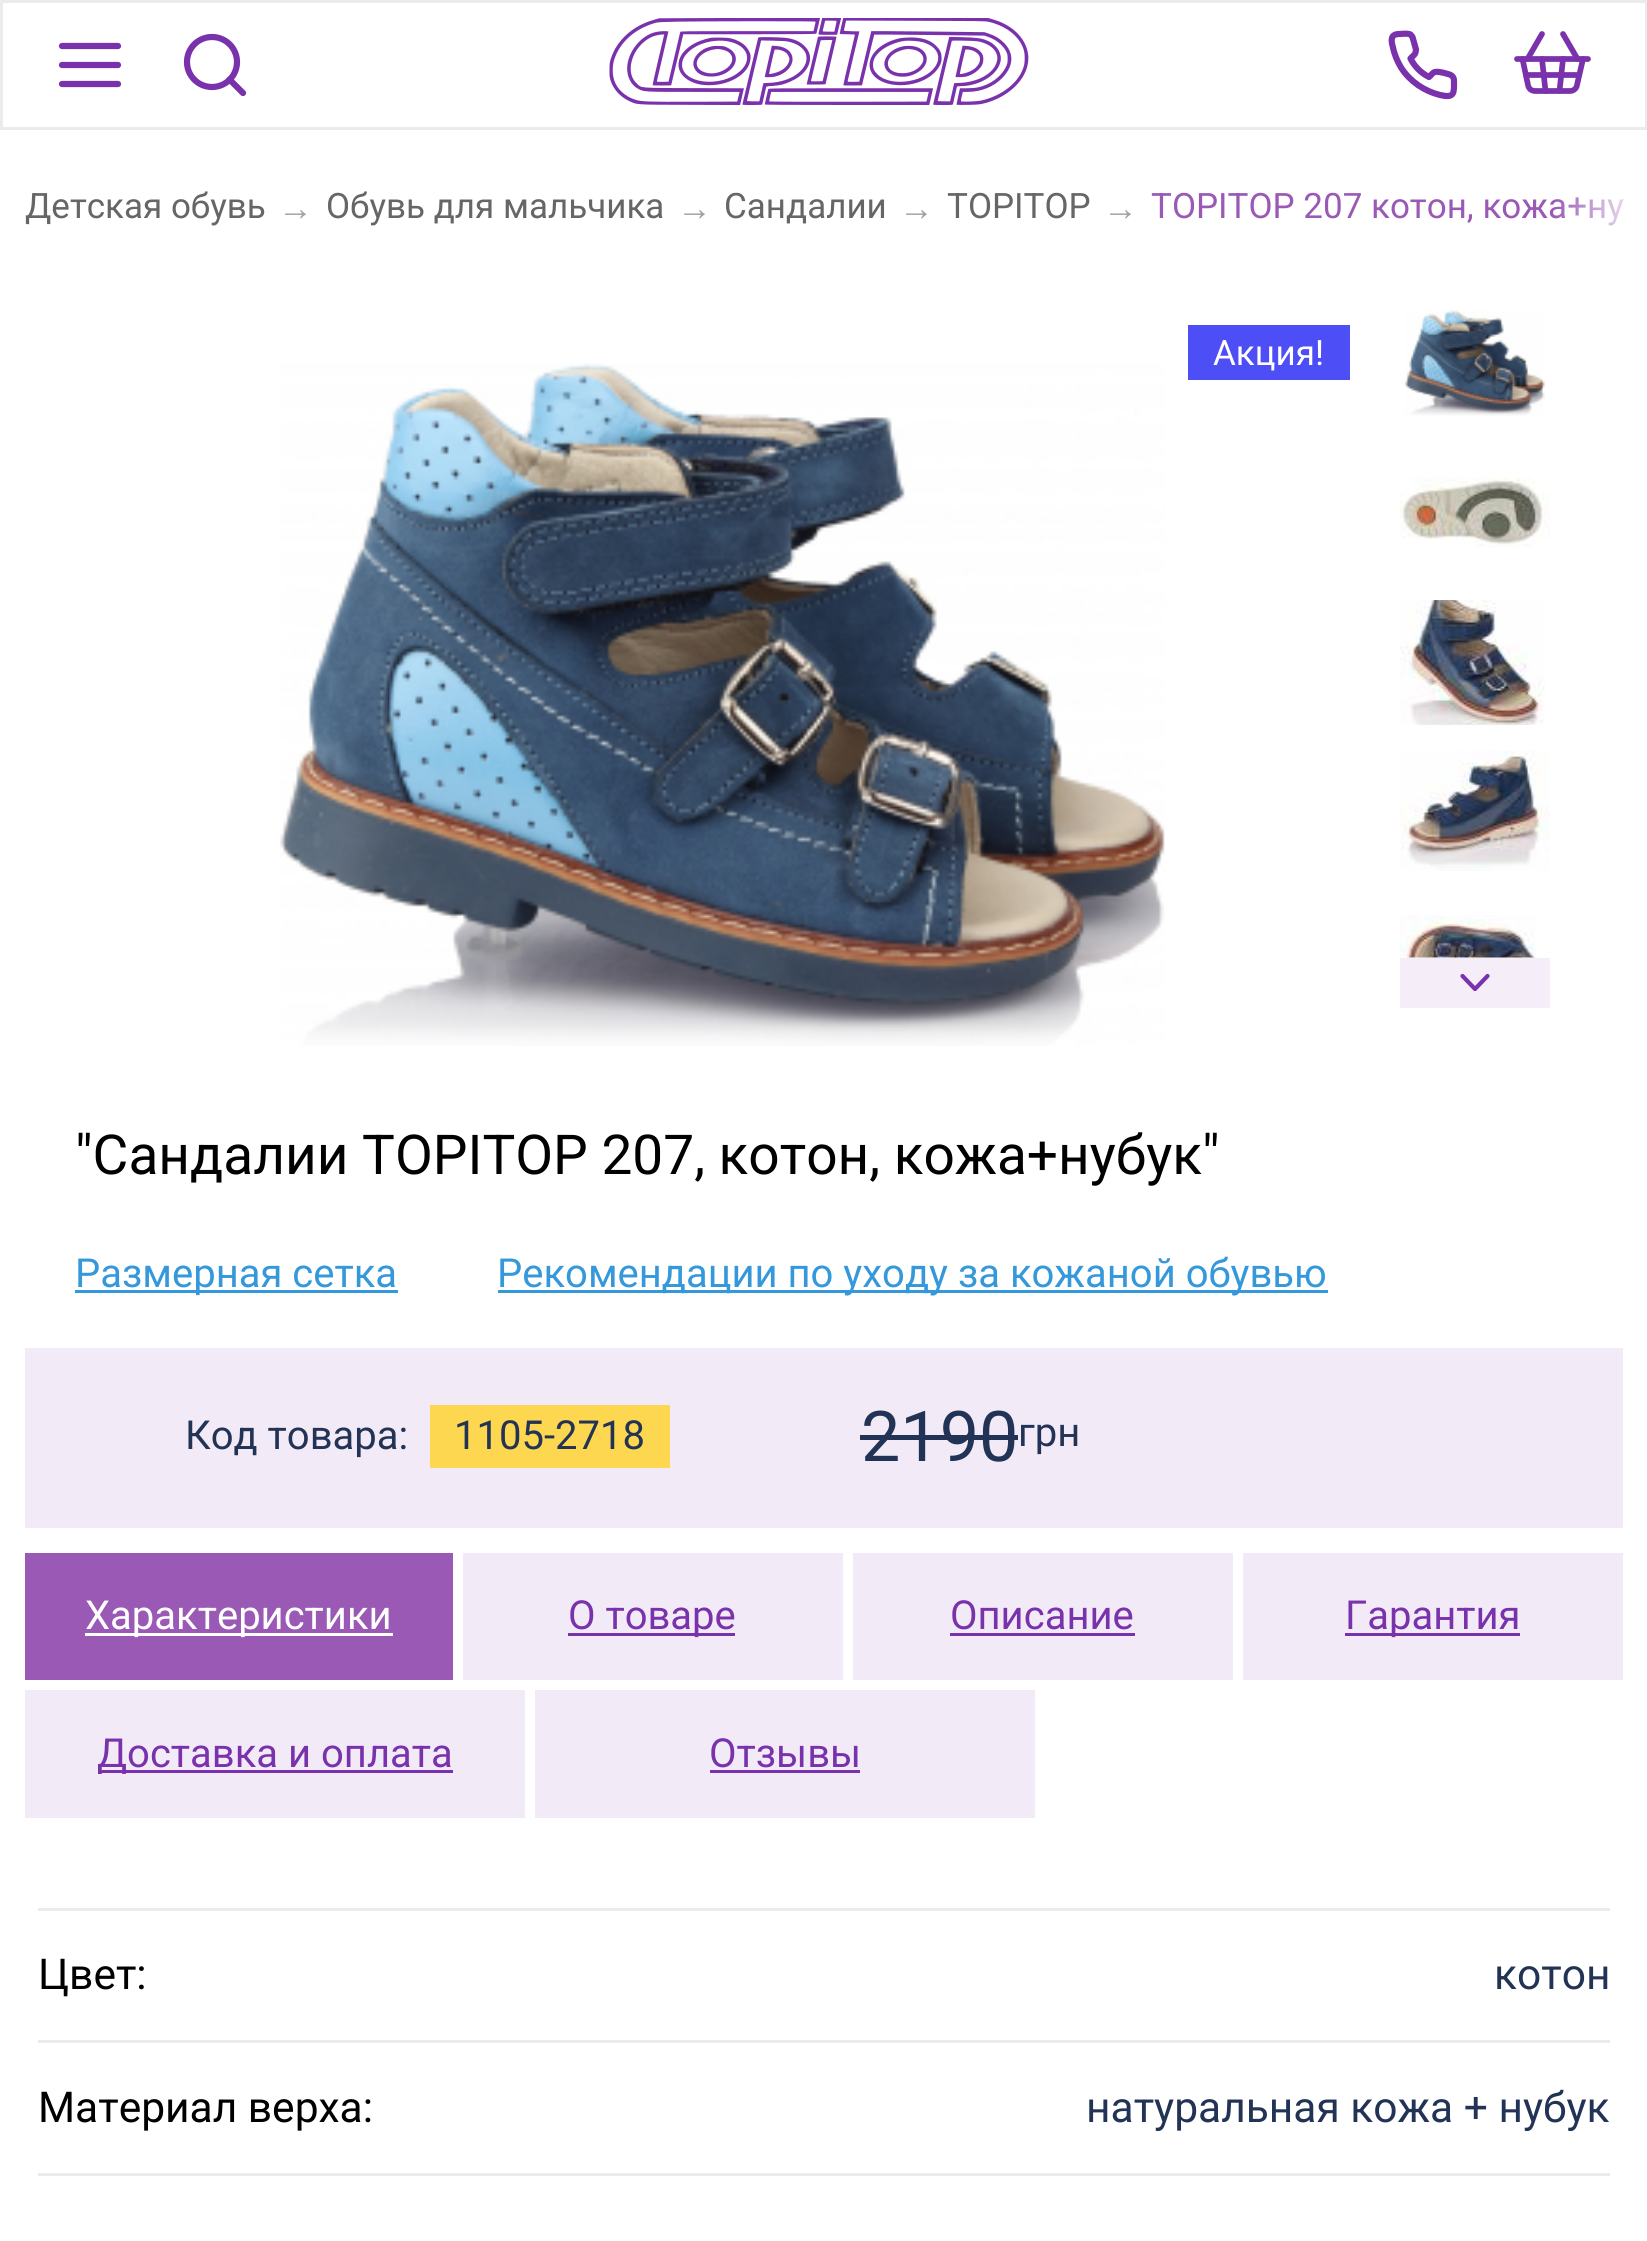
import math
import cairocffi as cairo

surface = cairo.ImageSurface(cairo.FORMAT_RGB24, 1647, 2241)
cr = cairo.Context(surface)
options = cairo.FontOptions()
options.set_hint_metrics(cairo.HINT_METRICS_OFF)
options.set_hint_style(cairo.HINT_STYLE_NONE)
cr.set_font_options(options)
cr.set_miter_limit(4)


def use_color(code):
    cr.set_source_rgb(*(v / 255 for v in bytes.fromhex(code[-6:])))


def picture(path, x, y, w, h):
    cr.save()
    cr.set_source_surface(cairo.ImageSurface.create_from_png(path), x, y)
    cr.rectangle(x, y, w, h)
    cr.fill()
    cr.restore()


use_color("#ffffff")
cr.paint()
cr.rectangle(1.5, 1.5, 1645, 127)
use_color("#ebebeb")
cr.set_line_width(3)
cr.stroke()
cr.new_path()
cr.move_to(62, 46)
cr.line_to(118, 46)
use_color("#7932ac")
cr.set_line_width(6.2)
cr.set_line_cap(cairo.LINE_CAP_ROUND)
cr.set_line_join(cairo.LINE_JOIN_ROUND)
cr.stroke()
cr.new_path()
cr.move_to(62, 65)
cr.line_to(118, 65)
cr.stroke()
cr.new_path()
cr.move_to(62, 84)
cr.line_to(118, 84)
cr.stroke()
cr.arc(212, 62, 25, 0, 2 * math.pi)
cr.set_line_cap(cairo.LINE_CAP_BUTT)
cr.set_line_join(cairo.LINE_JOIN_MITER)
cr.stroke()
cr.new_path()
cr.move_to(243, 93)
cr.line_to(229.5, 79.5)
cr.set_line_cap(cairo.LINE_CAP_ROUND)
cr.set_line_join(cairo.LINE_JOIN_ROUND)
cr.stroke()
picture("img1.png", 609, 18, 420, 87)
cr.new_path()
cr.move_to(1454, 80.5)
cr.curve_to(1454, 93, 1455, 98.5, 1440, 95)
cr.curve_to(1424, 91, 1410, 81.5, 1401, 67.5)
cr.curve_to(1397.5, 61.5, 1394.5, 55, 1393, 47.5)
cr.curve_to(1391, 40.5, 1390, 34, 1399.5, 34)
cr.curve_to(1402.5, 34, 1407.5, 33, 1410.5, 34.5)
cr.line_to(1412.5, 37)
cr.line_to(1416, 49.5)
cr.line_to(1415.5, 52.5)
cr.curve_to(1415, 55, 1412, 56.5, 1410.5, 58.5)
cr.curve_to(1414.5, 66.5, 1421, 73, 1429, 77)
cr.curve_to(1431, 75.5, 1432.5, 72.5, 1435, 72)
cr.curve_to(1437.5, 71, 1450, 74, 1451.5, 75.5)
cr.curve_to(1453, 76.5, 1454, 78.5, 1454, 80.5)
cr.close_path()
cr.stroke()
cr.new_path()
cr.move_to(1563, 59)
cr.line_to(1559.5, 91)
cr.move_to(1577.5, 59)
cr.line_to(1563, 34)
cr.set_line_width(5.7)
cr.stroke()
cr.new_path()
cr.move_to(1517, 59)
cr.line_to(1588, 59)
cr.stroke()
cr.new_path()
cr.move_to(1522.5, 59)
cr.line_to(1528, 85)
cr.curve_to(1528.5, 88.5, 1531.5, 91, 1535, 91)
cr.line_to(1570, 91)
cr.curve_to(1573.5, 91, 1576.5, 88.5, 1577, 85)
cr.line_to(1583, 59)
cr.stroke()
cr.new_path()
cr.move_to(1526, 75)
cr.line_to(1579, 75)
cr.move_to(1527.5, 59)
cr.line_to(1542, 34)
cr.move_to(1542, 59)
cr.line_to(1545.5, 91)
cr.stroke()
cr.select_font_face("Roboto")
cr.set_font_size(35)
use_color("#666666")
cr.move_to(25, 218)
cr.show_text("Детская обувь")
cr.select_font_face("Liberation Sans")
use_color("#a1a1a1")
cr.move_to(278, 220)
cr.show_text("→")
cr.select_font_face("Roboto")
use_color("#666666")
cr.move_to(326, 218)
cr.show_text("Обувь для мальчика")
cr.select_font_face("Liberation Sans")
use_color("#a1a1a1")
cr.move_to(677, 220)
cr.show_text("→")
cr.select_font_face("Roboto")
use_color("#666666")
cr.move_to(724, 218)
cr.show_text("Сандалии")
cr.select_font_face("Liberation Sans")
use_color("#a1a1a1")
cr.move_to(899, 220)
cr.show_text("→")
cr.select_font_face("Roboto")
use_color("#666666")
cr.move_to(947, 218)
cr.show_text("TOPITOP")
cr.select_font_face("Liberation Sans")
use_color("#a1a1a1")
cr.move_to(1103, 220)
cr.show_text("→")
cr.select_font_face("Roboto")
use_color("#9b59b6")
cr.move_to(1151, 218)
cr.show_text("TOPITOP 207 котон, кожа+ну")
gradient = cairo.LinearGradient(1548, 219, 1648, 219)
gradient.add_color_stop_rgba(0, 1, 1, 1, 0)
gradient.add_color_stop_rgba(0.05, 1, 1, 1, 0)
gradient.add_color_stop_rgba(1, 1, 1, 1, 1)
cr.set_source(gradient)
cr.rectangle(1555, 197, 68, 29)
cr.fill()
use_color("#4e4ef6")
cr.rectangle(1188, 325, 162, 55)
cr.fill()
use_color("#ffffff")
cr.move_to(1213, 365)
cr.show_text("Акция!")
picture("img2.png", 280, 363, 885, 683)
picture("img3.png", 1405, 310, 140, 106)
picture("img4.png", 1400, 477, 150, 71)
picture("img5.png", 1400, 600, 145, 125)
picture("img6.png", 1400, 750, 150, 121)
picture("img7.png", 1400, 915, 136, 43)
use_color("#f5eef8")
cr.rectangle(1400, 958, 150, 50)
cr.fill()
cr.new_path()
cr.move_to(1462.5, 976)
cr.line_to(1475, 989)
cr.line_to(1487.5, 976)
use_color("#7932ac")
cr.set_line_width(4.2)
cr.stroke()
cr.set_font_size(55)
use_color("#000000")
cr.move_to(75, 1174)
cr.show_text("\"Сандалии TOPITOP 207, котон, кожа+нубук\"")
use_color("#3498db")
cr.rectangle(75, 1290, 323, 3)
cr.fill()
cr.set_font_size(40)
cr.move_to(75, 1287)
cr.show_text("Размерная сетка")
cr.rectangle(498, 1290, 830, 3)
cr.fill()
cr.move_to(497, 1287)
cr.show_text("Рекомендации по уходу за кожаной обувью")
use_color("#f2ebf7")
cr.rectangle(25, 1348, 1598, 180)
cr.fill()
use_color("#223355")
cr.move_to(185, 1449)
cr.show_text("Код товара:")
use_color("#fdd74f")
cr.rectangle(430, 1405, 240, 63)
cr.fill()
use_color("#223355")
cr.move_to(454, 1449)
cr.show_text("1105-2718")
cr.set_font_size(70)
cr.move_to(861, 1461)
cr.show_text("2190")
cr.rectangle(860, 1435, 158, 5)
cr.fill()
cr.set_font_size(40)
cr.move_to(1018, 1446)
cr.show_text("грн")
use_color("#9b59b6")
cr.rectangle(25, 1553, 428, 127)
cr.fill()
use_color("#ffffff")
cr.rectangle(85, 1633, 308, 3)
cr.fill()
cr.move_to(85, 1629)
cr.show_text("Характеристики")
use_color("#f2ebf7")
cr.rectangle(463, 1553, 380, 127)
cr.fill()
use_color("#7932ac")
cr.rectangle(568, 1633, 167, 3)
cr.fill()
cr.move_to(568, 1629)
cr.show_text("О товаре")
use_color("#f2ebf7")
cr.rectangle(853, 1553, 380, 127)
cr.fill()
use_color("#7932ac")
cr.move_to(950, 1629)
cr.show_text("Описание")
cr.rectangle(950, 1633, 185, 3)
cr.fill()
use_color("#f2ebf7")
cr.rectangle(1243, 1553, 380, 127)
cr.fill()
use_color("#7932ac")
cr.rectangle(1345, 1633, 175, 3)
cr.fill()
cr.move_to(1345, 1629)
cr.show_text("Гарантия")
use_color("#f2ebf7")
cr.rectangle(25, 1690, 500, 128)
cr.fill()
use_color("#7932ac")
cr.rectangle(98, 1770, 355, 3)
cr.fill()
cr.move_to(97, 1767)
cr.show_text("Доставка и оплата")
use_color("#f2ebf7")
cr.rectangle(535, 1690, 500, 128)
cr.fill()
use_color("#7932ac")
cr.move_to(709, 1767)
cr.show_text("Отзывы")
cr.rectangle(710, 1770, 150, 3)
cr.fill()
use_color("#ebebeb")
cr.rectangle(38, 1908, 1572, 3)
cr.fill()
cr.rectangle(38, 2040, 1572, 3)
cr.fill()
cr.set_font_size(42.5)
use_color("#000000")
cr.move_to(38, 1989)
cr.show_text("Цвет:")
use_color("#223355")
cr.move_to(1494, 1989)
cr.show_text("котон")
use_color("#ebebeb")
cr.rectangle(38, 2173, 1572, 3)
cr.fill()
use_color("#000000")
cr.move_to(38, 2122)
cr.show_text("Материал верха:")
use_color("#223355")
cr.move_to(1086, 2122)
cr.show_text("натуральная кожа + нубук")
surface.write_to_png("result.png")
